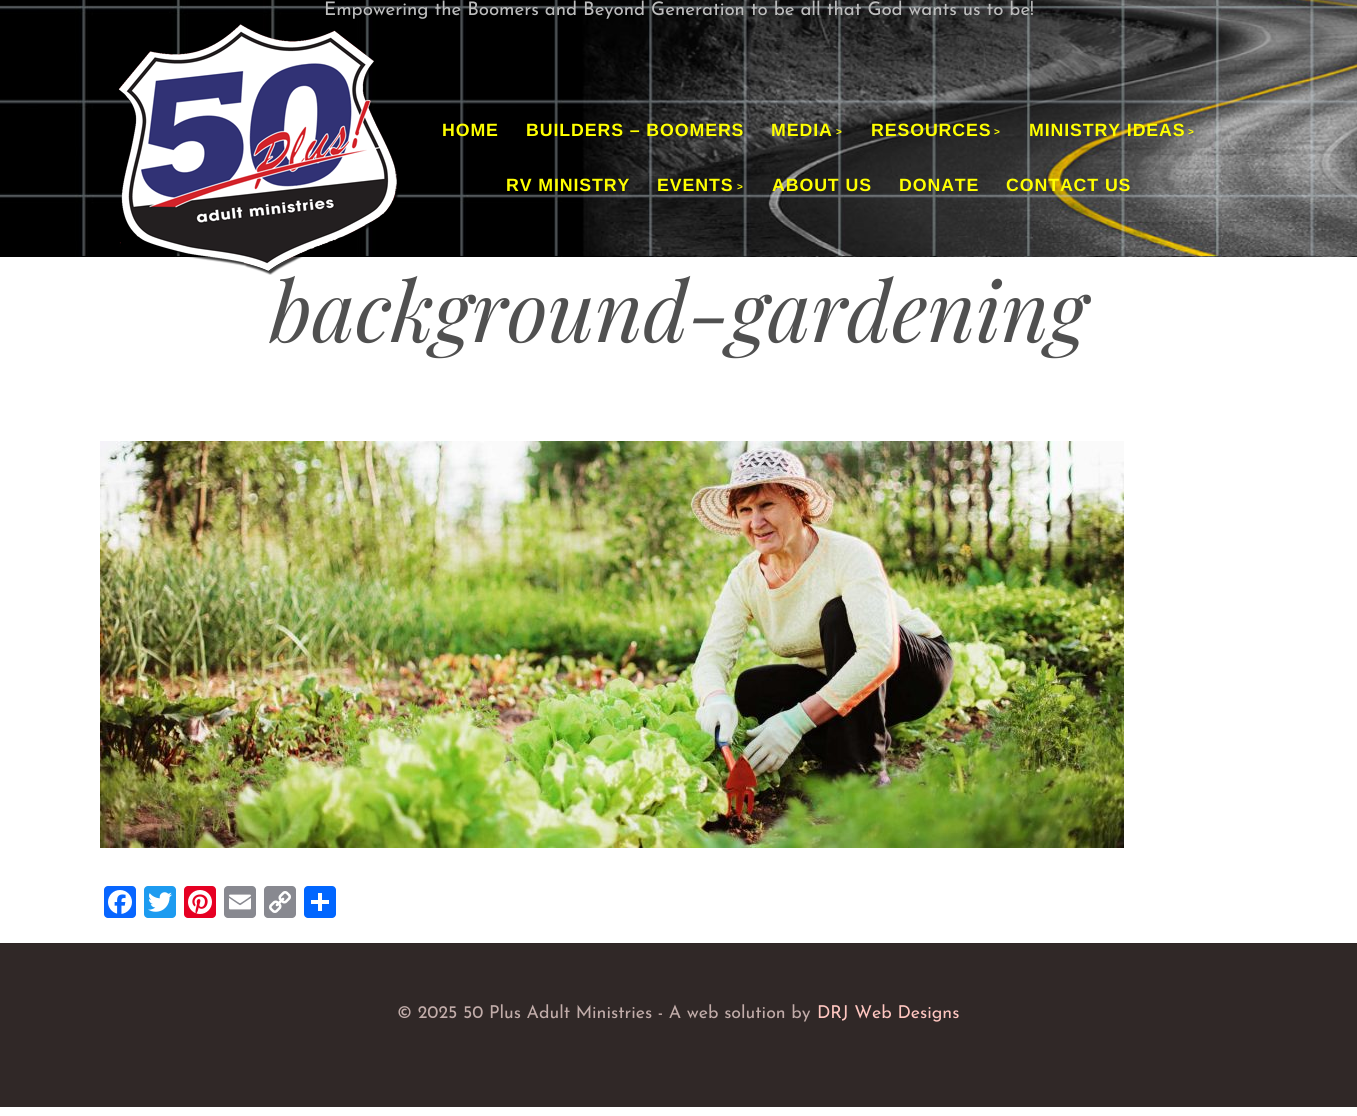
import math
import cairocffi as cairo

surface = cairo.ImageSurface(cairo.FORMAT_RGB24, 1357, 1116)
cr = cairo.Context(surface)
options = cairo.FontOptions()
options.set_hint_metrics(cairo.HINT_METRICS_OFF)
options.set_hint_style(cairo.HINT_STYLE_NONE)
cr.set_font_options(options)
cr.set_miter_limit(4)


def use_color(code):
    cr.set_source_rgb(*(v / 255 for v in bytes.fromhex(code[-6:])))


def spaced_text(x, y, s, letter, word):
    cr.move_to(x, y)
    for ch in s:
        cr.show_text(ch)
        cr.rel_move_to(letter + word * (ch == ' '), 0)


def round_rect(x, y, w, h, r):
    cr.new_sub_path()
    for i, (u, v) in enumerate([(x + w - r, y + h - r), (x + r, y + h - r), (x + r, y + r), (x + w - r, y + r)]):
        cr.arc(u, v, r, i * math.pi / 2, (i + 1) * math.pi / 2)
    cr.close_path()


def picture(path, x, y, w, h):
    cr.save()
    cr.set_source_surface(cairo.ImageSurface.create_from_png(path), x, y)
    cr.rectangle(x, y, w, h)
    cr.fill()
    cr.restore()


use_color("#ffffff")
cr.paint()
picture("img1.png", 0, 0, 1357, 257)
cr.set_source_rgba(0, 0, 0, 0.05)
cr.rectangle(745, 256, 612, 1)
cr.fill()
cr.select_font_face("Josefin Sans")
cr.set_font_size(18.7)
use_color("#bdbdbd")
cr.move_to(324, 15)
cr.show_text("Empowering the Boomers and Beyond Generation to be all that God wants us to be!")
picture("img2.png", 118, 24, 281, 251)
cr.select_font_face("Liberation Sans", cairo.FONT_SLANT_NORMAL, cairo.FONT_WEIGHT_BOLD)
cr.set_font_size(17.75)
use_color("#ffff00")
spaced_text(442, 136, "HOME", 0.9, 0)
spaced_text(526, 136, "BUILDERS – BOOMERS", 0.9, 0)
spaced_text(771, 136, "MEDIA", 0.9, 0)
cr.set_font_size(10)
spaced_text(836, 135, ">", 0.9, 0)
cr.set_font_size(17.75)
spaced_text(871, 136, "RESOURCES", 0.9, 0)
cr.set_font_size(10)
spaced_text(994, 135, ">", 0.9, 0)
cr.set_font_size(17.75)
spaced_text(1029, 136, "MINISTRY IDEAS", 0.9, 0)
cr.set_font_size(10)
spaced_text(1188, 135, ">", 0.9, 0)
cr.set_font_size(17.75)
spaced_text(506, 191, "RV MINISTRY", 0.9, 0)
spaced_text(657, 191, "EVENTS", 0.9, 0)
cr.set_font_size(10)
spaced_text(737, 190, ">", 0.9, 0)
cr.set_font_size(17.75)
spaced_text(772, 191, "ABOUT US", 0.9, 0)
spaced_text(899, 191, "DONATE", 0.9, 0)
spaced_text(1006, 191, "CONTACT US", 0.9, 0)
cr.select_font_face("Playfair Display", cairo.FONT_SLANT_ITALIC)
cr.set_font_size(83.25)
use_color("#505050")
cr.move_to(270, 342)
cr.show_text("background-gardening")
picture("img3.png", 100, 441, 1024, 407)
use_color("#0866ff")
round_rect(104, 886, 32, 32, 4)
cr.fill()
picture("img4.png", 108, 890, 24, 24)
use_color("#1d9bf0")
round_rect(144, 886, 32, 32, 4)
cr.fill()
picture("img5.png", 148, 892, 24, 20)
use_color("#e60023")
round_rect(184, 886, 32, 32, 4)
cr.fill()
picture("img6.png", 188, 890, 24, 24)
use_color("#888990")
round_rect(224, 886, 32, 32, 4)
cr.fill()
picture("img7.png", 229, 894, 22, 16)
round_rect(264, 886, 32, 32, 4)
cr.fill()
picture("img8.png", 269, 891, 22, 22)
use_color("#0166ff")
round_rect(304, 886, 32, 32, 4)
cr.fill()
use_color("#ffffff")
cr.rectangle(318, 893, 4, 18)
cr.fill()
cr.rectangle(311, 900, 18, 4)
cr.fill()
use_color("#302827")
cr.rectangle(0, 944, 1357, 163)
cr.fill()
use_color("#2e2625")
cr.rectangle(0, 943, 1357, 1)
cr.fill()
cr.select_font_face("Josefin Sans")
cr.set_font_size(17.75)
use_color("#c1aca9")
cr.move_to(397, 1018)
cr.show_text("© 2025 50 Plus Adult Ministries - A web solution by")
use_color("#ffc6c0")
cr.move_to(817, 1018)
cr.show_text("DRJ Web Designs")
surface.write_to_png("result.png")
